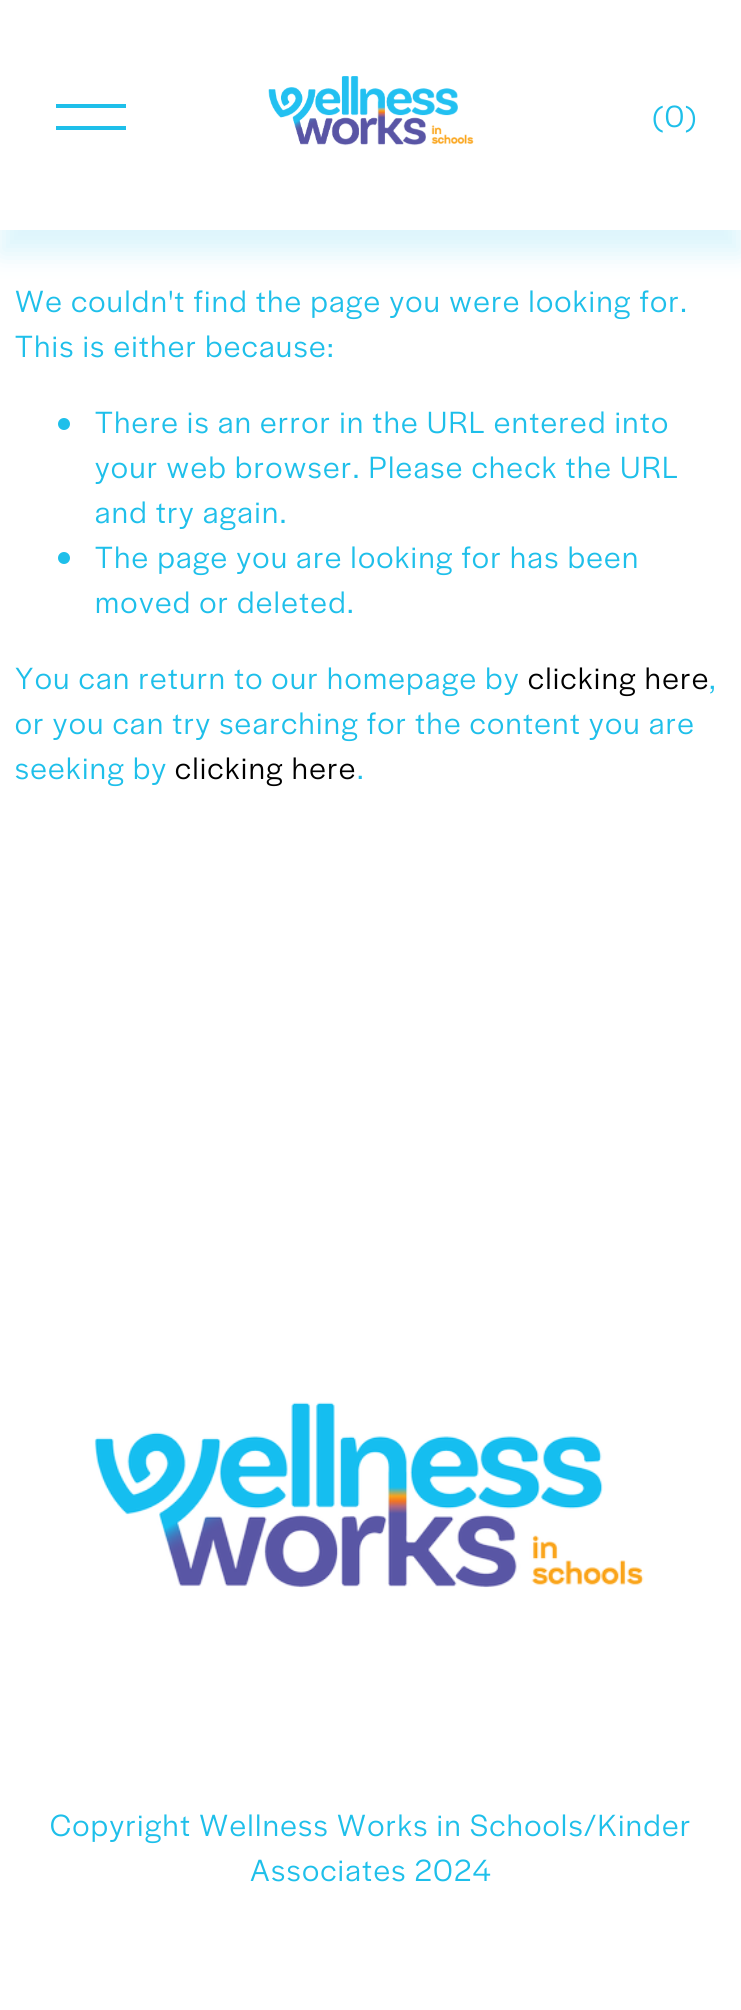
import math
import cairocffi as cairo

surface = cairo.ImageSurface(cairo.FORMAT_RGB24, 741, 2010)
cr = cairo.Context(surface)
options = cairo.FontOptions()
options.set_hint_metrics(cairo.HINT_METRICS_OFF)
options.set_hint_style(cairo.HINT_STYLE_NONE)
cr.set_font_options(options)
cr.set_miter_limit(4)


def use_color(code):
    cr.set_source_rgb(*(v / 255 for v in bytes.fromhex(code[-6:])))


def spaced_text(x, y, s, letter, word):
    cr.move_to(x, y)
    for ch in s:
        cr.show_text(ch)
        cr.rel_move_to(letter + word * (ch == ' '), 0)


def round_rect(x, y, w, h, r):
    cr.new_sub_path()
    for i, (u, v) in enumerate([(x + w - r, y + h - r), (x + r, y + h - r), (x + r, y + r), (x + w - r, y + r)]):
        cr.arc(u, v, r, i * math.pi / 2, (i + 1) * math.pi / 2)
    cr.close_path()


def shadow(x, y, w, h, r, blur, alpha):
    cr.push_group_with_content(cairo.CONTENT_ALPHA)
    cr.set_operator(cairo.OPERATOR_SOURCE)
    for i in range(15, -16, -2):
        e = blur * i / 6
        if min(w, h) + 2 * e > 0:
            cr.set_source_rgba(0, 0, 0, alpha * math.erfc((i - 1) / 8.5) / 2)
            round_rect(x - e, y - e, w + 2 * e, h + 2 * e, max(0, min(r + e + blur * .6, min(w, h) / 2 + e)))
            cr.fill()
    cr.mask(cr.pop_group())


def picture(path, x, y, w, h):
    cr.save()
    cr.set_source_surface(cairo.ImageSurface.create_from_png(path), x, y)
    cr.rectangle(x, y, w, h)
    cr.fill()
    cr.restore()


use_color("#ffffff")
cr.paint()
cr.save()
cr.rectangle(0, 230, 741, 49)
cr.clip()
use_color("#ddf5fc")
shadow(0, 24, 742, 230, 0, 12, 1)
cr.restore()
use_color("#1ebfea")
cr.rectangle(56, 104, 70, 4)
cr.fill()
cr.rectangle(56, 126, 70, 4)
cr.fill()
picture("img1.png", 268, 76, 206, 70)
cr.select_font_face("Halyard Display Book")
cr.set_font_size(32)
spaced_text(653, 127, "(0)", 1.6, 0)
spaced_text(15, 312, "We couldn't find the page you were looking for.", 1.6, 0)
spaced_text(15, 357, "This is either because:", 1.6, 0)
cr.new_path()
cr.arc(64, 424, 6, 0, 2 * math.pi)
cr.fill()
spaced_text(95, 433, "There is an error in the URL entered into", 1.6, 0)
spaced_text(95, 478, "your web browser. Please check the URL", 1.6, 0)
spaced_text(95, 523, "and try again.", 1.6, 0)
cr.new_path()
cr.arc(64, 558, 6, 0, 2 * math.pi)
cr.fill()
spaced_text(95, 568, "The page you are looking for has been", 1.6, 0)
spaced_text(95, 613, "moved or deleted.", 1.6, 0)
spaced_text(15, 689, "You can return to our homepage by", 1.6, 0)
use_color("#000000")
spaced_text(528, 689, "clicking here", 1.6, 0)
use_color("#1ebfea")
spaced_text(709, 689, ",", 1.6, 0)
spaced_text(15, 734, "or you can try searching for the content you are", 1.6, 0)
spaced_text(15, 779, "seeking by", 1.6, 0)
use_color("#000000")
spaced_text(175, 779, "clicking here", 1.6, 0)
use_color("#1ebfea")
spaced_text(357, 779, ".", 1.6, 0)
picture("img2.png", 94, 1402, 550, 186)
spaced_text(50, 1836, "Copyright Wellness Works in Schools/Kinder", 1.6, 0)
spaced_text(250, 1881, "Associates 2024", 1.6, 0)
surface.write_to_png("result.png")
